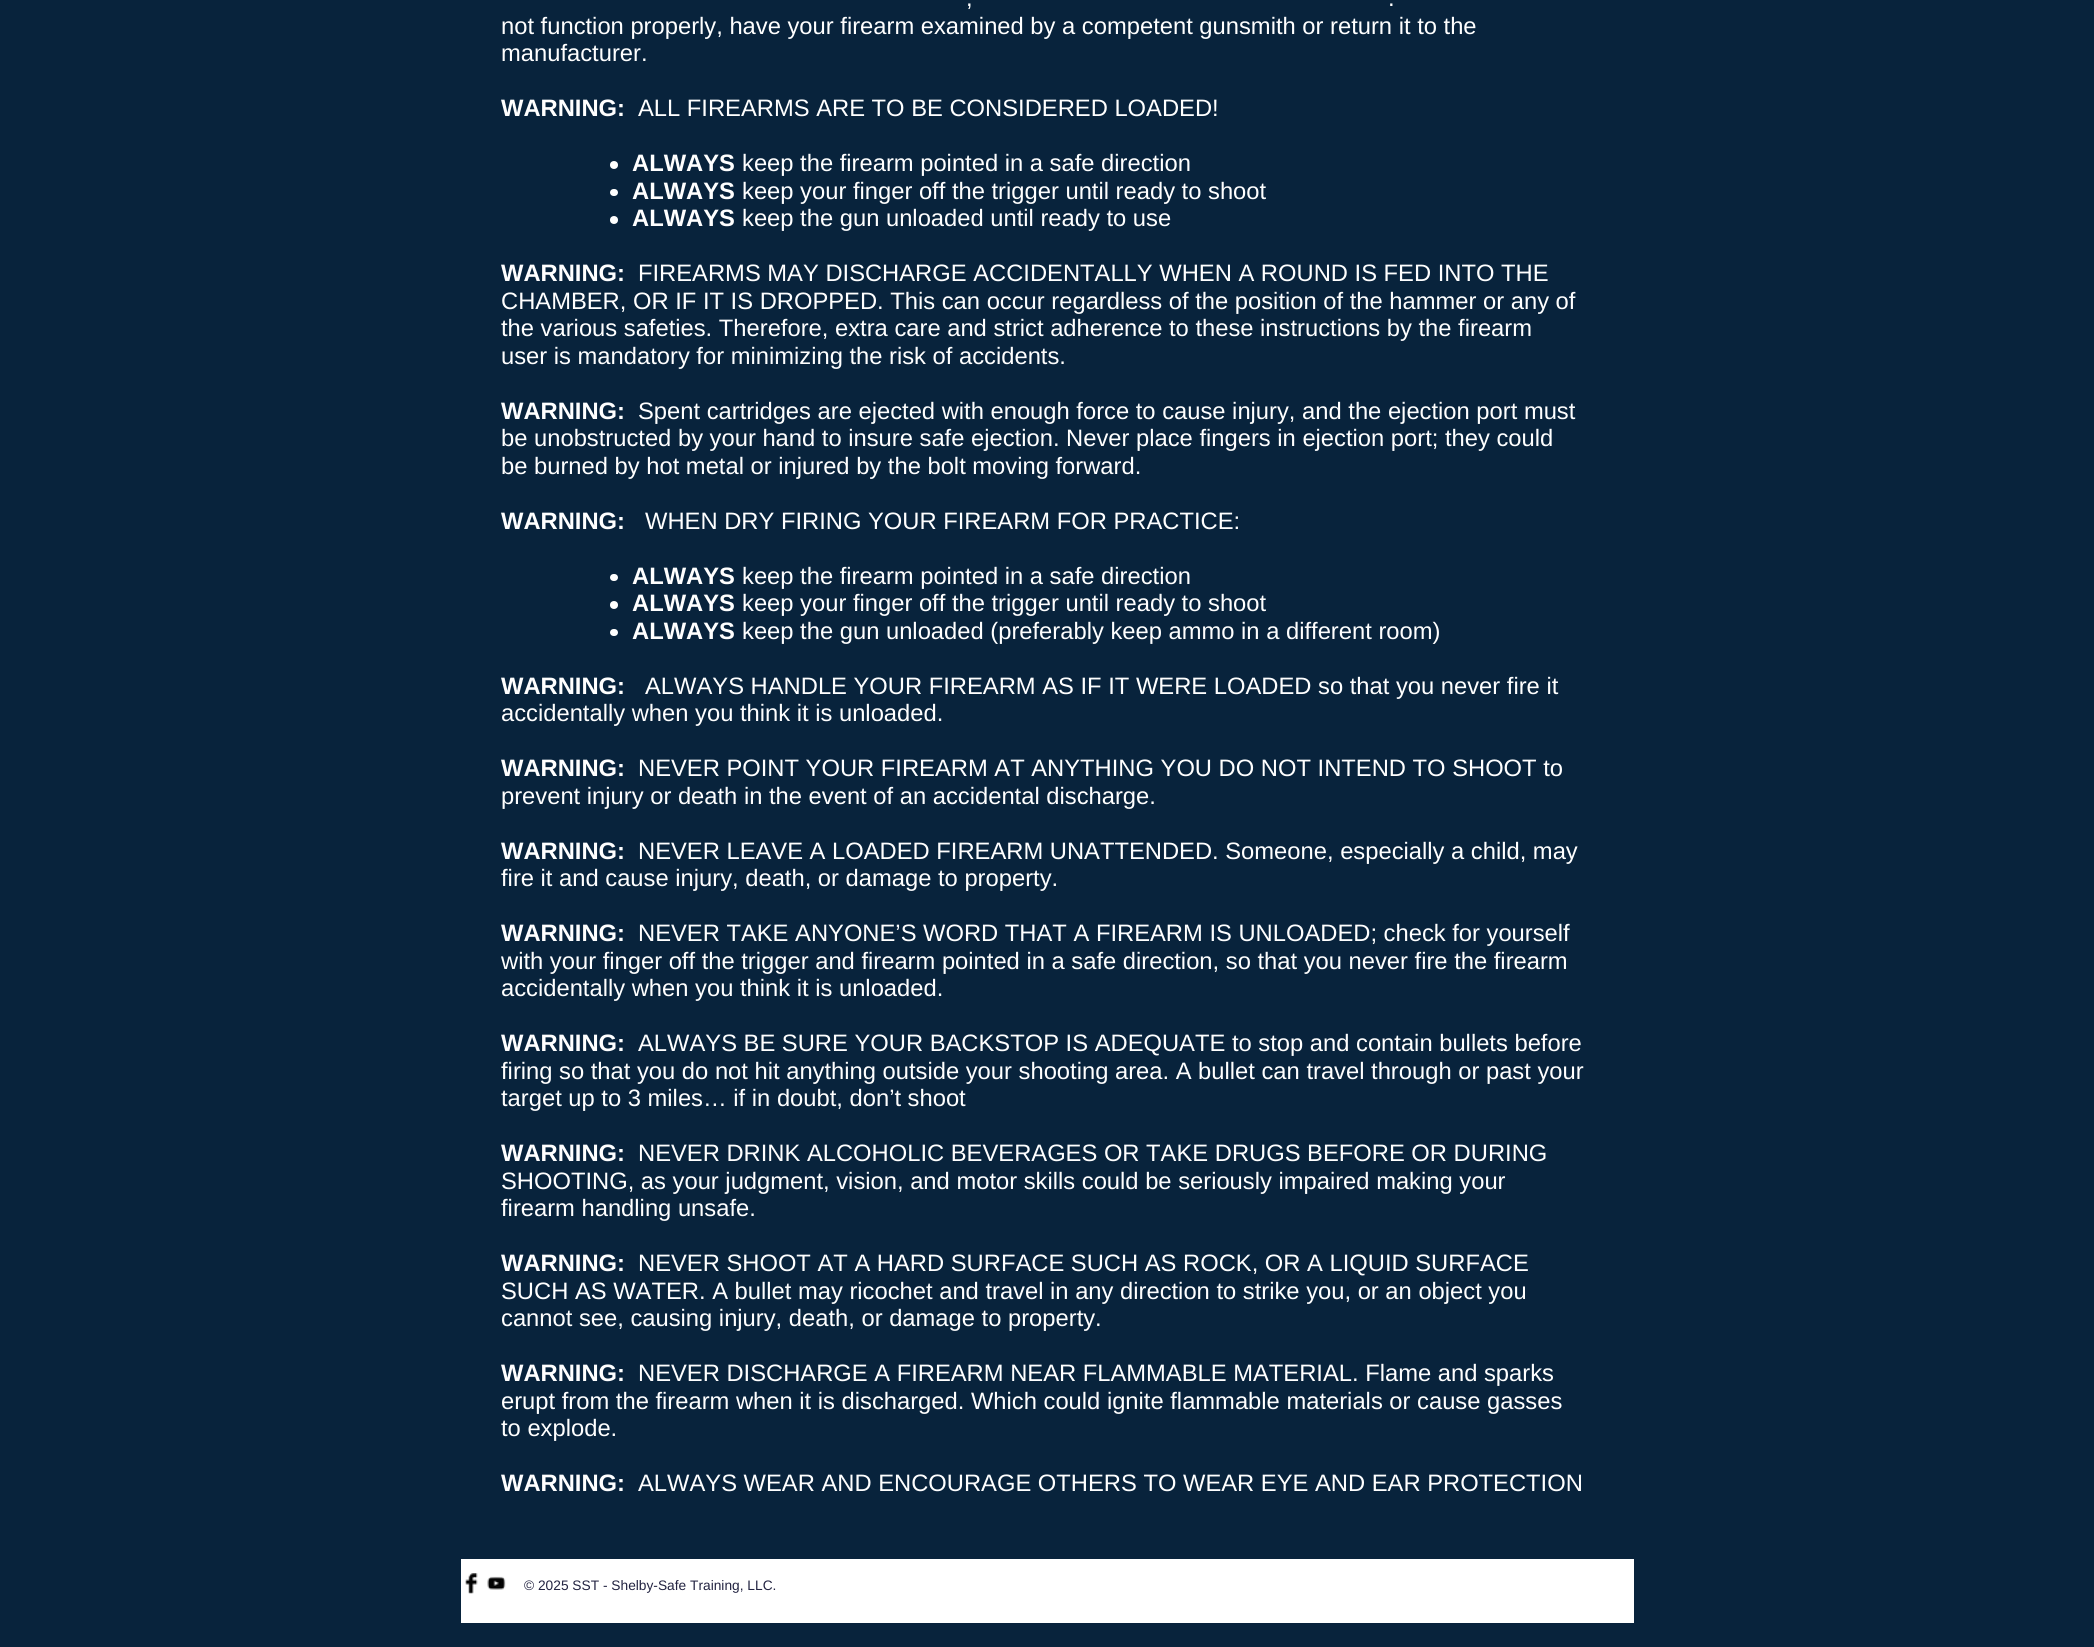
import math
import cairocffi as cairo

surface = cairo.ImageSurface(cairo.FORMAT_RGB24, 2094, 1647)
cr = cairo.Context(surface)
options = cairo.FontOptions()
options.set_hint_metrics(cairo.HINT_METRICS_OFF)
options.set_hint_style(cairo.HINT_STYLE_NONE)
cr.set_font_options(options)
cr.set_miter_limit(4)


def use_color(code):
    cr.set_source_rgb(*(v / 255 for v in bytes.fromhex(code[-6:])))


def round_rect(x, y, w, h, r):
    cr.new_sub_path()
    for i, (u, v) in enumerate([(x + w - r, y + h - r), (x + r, y + h - r), (x + r, y + r), (x + w - r, y + r)]):
        cr.arc(u, v, r, i * math.pi / 2, (i + 1) * math.pi / 2)
    cr.close_path()


def picture(path, x, y, w, h):
    cr.save()
    cr.set_source_surface(cairo.ImageSurface.create_from_png(path), x, y)
    cr.rectangle(x, y, w, h)
    cr.fill()
    cr.restore()


use_color("#08233c")
cr.paint()
cr.select_font_face("Liberation Sans")
cr.set_font_size(23.75)
use_color("#ffffff")
cr.move_to(966, 6)
cr.show_text(",")
cr.move_to(1388, 6)
cr.show_text(".")
cr.move_to(501, 34)
cr.show_text("not function properly, have your firearm examined by a competent gunsmith or return it to the")
cr.move_to(501, 61)
cr.show_text("manufacturer.")
cr.select_font_face("Liberation Sans", cairo.FONT_SLANT_NORMAL, cairo.FONT_WEIGHT_BOLD)
cr.move_to(501, 116)
cr.show_text("WARNING:")
cr.select_font_face("Liberation Sans")
cr.move_to(638, 116)
cr.show_text("ALL FIREARMS ARE TO BE CONSIDERED LOADED!")
cr.new_path()
cr.arc(614, 165, 4, 0, 2 * math.pi)
cr.fill()
cr.select_font_face("Liberation Sans", cairo.FONT_SLANT_NORMAL, cairo.FONT_WEIGHT_BOLD)
cr.move_to(632, 171)
cr.show_text("ALWAYS")
cr.select_font_face("Liberation Sans")
cr.move_to(742, 171)
cr.show_text("keep the firearm pointed in a safe direction")
round_rect(610, 189, 8, 7, 3.5)
cr.fill()
cr.select_font_face("Liberation Sans", cairo.FONT_SLANT_NORMAL, cairo.FONT_WEIGHT_BOLD)
cr.move_to(632, 199)
cr.show_text("ALWAYS")
cr.select_font_face("Liberation Sans")
cr.move_to(742, 199)
cr.show_text("keep your finger off the trigger until ready to shoot")
cr.new_path()
cr.arc(614, 220, 4, 0, 2 * math.pi)
cr.fill()
cr.select_font_face("Liberation Sans", cairo.FONT_SLANT_NORMAL, cairo.FONT_WEIGHT_BOLD)
cr.move_to(632, 226)
cr.show_text("ALWAYS")
cr.select_font_face("Liberation Sans")
cr.move_to(742, 226)
cr.show_text("keep the gun unloaded until ready to use")
cr.select_font_face("Liberation Sans", cairo.FONT_SLANT_NORMAL, cairo.FONT_WEIGHT_BOLD)
cr.move_to(501, 281)
cr.show_text("WARNING:")
cr.select_font_face("Liberation Sans")
cr.move_to(638, 281)
cr.show_text("FIREARMS MAY DISCHARGE ACCIDENTALLY WHEN A ROUND IS FED INTO THE")
cr.move_to(501, 309)
cr.show_text("CHAMBER, OR IF IT IS DROPPED. This can occur regardless of the position of the hammer or any of")
cr.move_to(501, 336)
cr.show_text("the various safeties. Therefore, extra care and strict adherence to these instructions by the firearm")
cr.move_to(501, 364)
cr.show_text("user is mandatory for minimizing the risk of accidents.")
cr.select_font_face("Liberation Sans", cairo.FONT_SLANT_NORMAL, cairo.FONT_WEIGHT_BOLD)
cr.move_to(501, 419)
cr.show_text("WARNING:")
cr.select_font_face("Liberation Sans")
cr.move_to(638, 419)
cr.show_text("Spent cartridges are ejected with enough force to cause injury, and the ejection port must")
cr.move_to(501, 446)
cr.show_text("be unobstructed by your hand to insure safe ejection. Never place fingers in ejection port; they could")
cr.move_to(501, 474)
cr.show_text("be burned by hot metal or injured by the bolt moving forward.")
cr.select_font_face("Liberation Sans", cairo.FONT_SLANT_NORMAL, cairo.FONT_WEIGHT_BOLD)
cr.move_to(501, 529)
cr.show_text("WARNING:")
cr.select_font_face("Liberation Sans")
cr.move_to(645, 529)
cr.show_text("WHEN DRY FIRING YOUR FIREARM FOR PRACTICE:")
round_rect(610, 574, 8, 7, 3.5)
cr.fill()
cr.select_font_face("Liberation Sans", cairo.FONT_SLANT_NORMAL, cairo.FONT_WEIGHT_BOLD)
cr.move_to(632, 584)
cr.show_text("ALWAYS")
cr.select_font_face("Liberation Sans")
cr.move_to(742, 584)
cr.show_text("keep the firearm pointed in a safe direction")
cr.new_path()
cr.arc(614, 605, 4, 0, 2 * math.pi)
cr.fill()
cr.select_font_face("Liberation Sans", cairo.FONT_SLANT_NORMAL, cairo.FONT_WEIGHT_BOLD)
cr.move_to(632, 611)
cr.show_text("ALWAYS")
cr.select_font_face("Liberation Sans")
cr.move_to(742, 611)
cr.show_text("keep your finger off the trigger until ready to shoot")
round_rect(610, 629, 8, 7, 3.5)
cr.fill()
cr.select_font_face("Liberation Sans", cairo.FONT_SLANT_NORMAL, cairo.FONT_WEIGHT_BOLD)
cr.move_to(632, 639)
cr.show_text("ALWAYS")
cr.select_font_face("Liberation Sans")
cr.move_to(742, 639)
cr.show_text("keep the gun unloaded (preferably keep ammo in a different room)")
cr.select_font_face("Liberation Sans", cairo.FONT_SLANT_NORMAL, cairo.FONT_WEIGHT_BOLD)
cr.move_to(501, 694)
cr.show_text("WARNING:")
cr.select_font_face("Liberation Sans")
cr.move_to(645, 694)
cr.show_text("ALWAYS HANDLE YOUR FIREARM AS IF IT WERE LOADED so that you never fire it")
cr.move_to(501, 721)
cr.show_text("accidentally when you think it is unloaded.")
cr.select_font_face("Liberation Sans", cairo.FONT_SLANT_NORMAL, cairo.FONT_WEIGHT_BOLD)
cr.move_to(501, 776)
cr.show_text("WARNING:")
cr.select_font_face("Liberation Sans")
cr.move_to(638, 776)
cr.show_text("NEVER POINT YOUR FIREARM AT ANYTHING YOU DO NOT INTEND TO SHOOT to")
cr.move_to(501, 804)
cr.show_text("prevent injury or death in the event of an accidental discharge.")
cr.select_font_face("Liberation Sans", cairo.FONT_SLANT_NORMAL, cairo.FONT_WEIGHT_BOLD)
cr.move_to(501, 859)
cr.show_text("WARNING:")
cr.select_font_face("Liberation Sans")
cr.move_to(638, 859)
cr.show_text("NEVER LEAVE A LOADED FIREARM UNATTENDED. Someone, especially a child, may")
cr.move_to(501, 886)
cr.show_text("fire it and cause injury, death, or damage to property.")
cr.select_font_face("Liberation Sans", cairo.FONT_SLANT_NORMAL, cairo.FONT_WEIGHT_BOLD)
cr.move_to(501, 941)
cr.show_text("WARNING:")
cr.select_font_face("Liberation Sans")
cr.move_to(638, 941)
cr.show_text("NEVER TAKE ANYONE’S WORD THAT A FIREARM IS UNLOADED; check for yourself")
cr.move_to(501, 969)
cr.show_text("with your finger off the trigger and firearm pointed in a safe direction, so that you never fire the firearm")
cr.move_to(501, 996)
cr.show_text("accidentally when you think it is unloaded.")
cr.select_font_face("Liberation Sans", cairo.FONT_SLANT_NORMAL, cairo.FONT_WEIGHT_BOLD)
cr.move_to(501, 1051)
cr.show_text("WARNING:")
cr.select_font_face("Liberation Sans")
cr.move_to(638, 1051)
cr.show_text("ALWAYS BE SURE YOUR BACKSTOP IS ADEQUATE to stop and contain bullets before")
cr.move_to(501, 1079)
cr.show_text("firing so that you do not hit anything outside your shooting area. A bullet can travel through or past your")
cr.move_to(501, 1106)
cr.show_text("target up to 3 miles… if in doubt, don’t shoot")
cr.select_font_face("Liberation Sans", cairo.FONT_SLANT_NORMAL, cairo.FONT_WEIGHT_BOLD)
cr.move_to(501, 1161)
cr.show_text("WARNING:")
cr.select_font_face("Liberation Sans")
cr.move_to(638, 1161)
cr.show_text("NEVER DRINK ALCOHOLIC BEVERAGES OR TAKE DRUGS BEFORE OR DURING")
cr.move_to(501, 1189)
cr.show_text("SHOOTING, as your judgment, vision, and motor skills could be seriously impaired making your")
cr.move_to(501, 1216)
cr.show_text("firearm handling unsafe.")
cr.select_font_face("Liberation Sans", cairo.FONT_SLANT_NORMAL, cairo.FONT_WEIGHT_BOLD)
cr.move_to(501, 1271)
cr.show_text("WARNING:")
cr.select_font_face("Liberation Sans")
cr.move_to(638, 1271)
cr.show_text("NEVER SHOOT AT A HARD SURFACE SUCH AS ROCK, OR A LIQUID SURFACE")
cr.move_to(501, 1299)
cr.show_text("SUCH AS WATER. A bullet may ricochet and travel in any direction to strike you, or an object you")
cr.move_to(501, 1326)
cr.show_text("cannot see, causing injury, death, or damage to property.")
cr.select_font_face("Liberation Sans", cairo.FONT_SLANT_NORMAL, cairo.FONT_WEIGHT_BOLD)
cr.move_to(501, 1381)
cr.show_text("WARNING:")
cr.select_font_face("Liberation Sans")
cr.move_to(638, 1381)
cr.show_text("NEVER DISCHARGE A FIREARM NEAR FLAMMABLE MATERIAL. Flame and sparks")
cr.move_to(501, 1409)
cr.show_text("erupt from the firearm when it is discharged. Which could ignite flammable materials or cause gasses")
cr.move_to(501, 1436)
cr.show_text("to explode.")
cr.select_font_face("Liberation Sans", cairo.FONT_SLANT_NORMAL, cairo.FONT_WEIGHT_BOLD)
cr.move_to(501, 1491)
cr.show_text("WARNING:")
cr.select_font_face("Liberation Sans")
cr.move_to(638, 1491)
cr.show_text("ALWAYS WEAR AND ENCOURAGE OTHERS TO WEAR EYE AND EAR PROTECTION")
cr.rectangle(461, 1559, 1173, 64)
cr.fill()
picture("img1.png", 465, 1573, 13, 21)
picture("img2.png", 487, 1576, 19, 14)
cr.set_font_size(13.75)
use_color("#232442")
cr.move_to(524, 1590)
cr.show_text("© 2025 SST - Shelby-Safe Training, LLC.")
surface.write_to_png("result.png")
